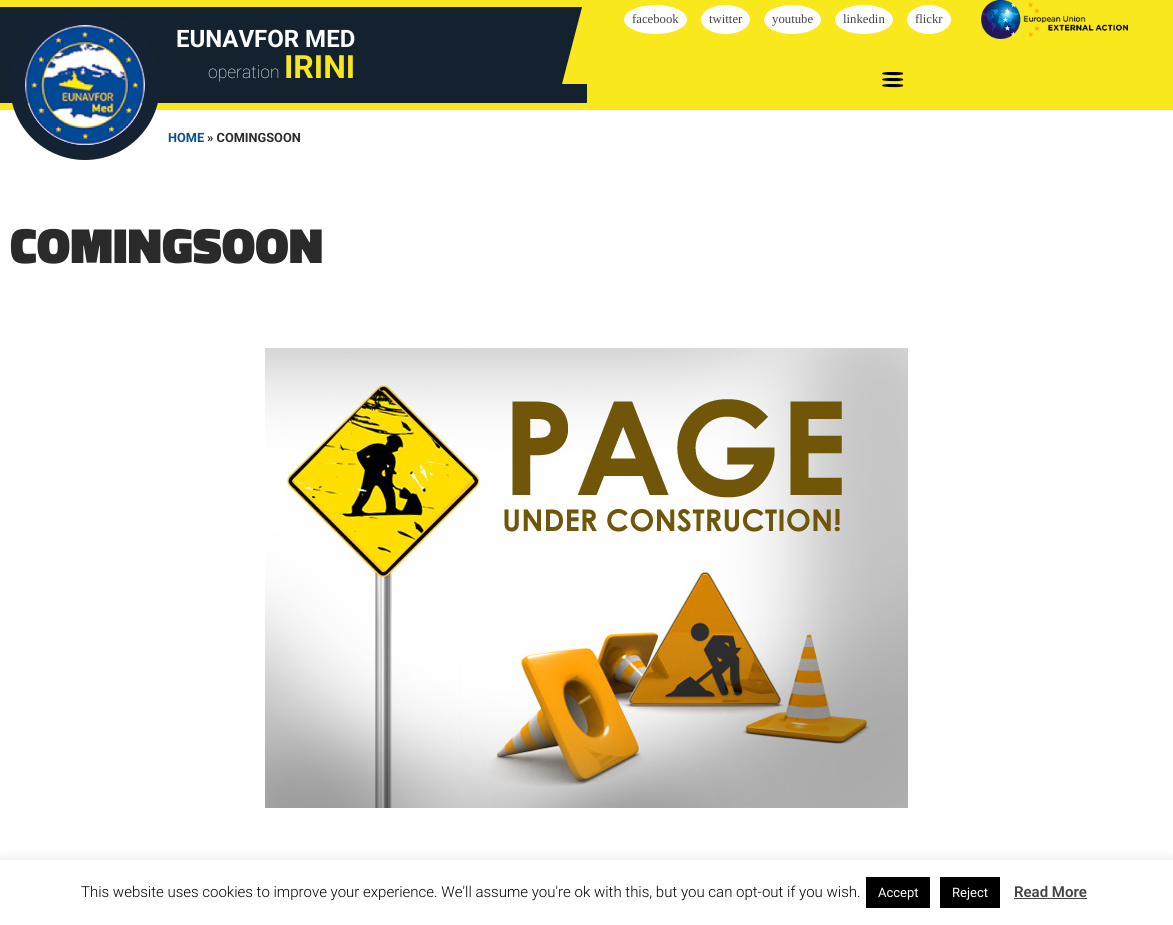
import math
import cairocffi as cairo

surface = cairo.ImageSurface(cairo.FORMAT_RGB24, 1173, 925)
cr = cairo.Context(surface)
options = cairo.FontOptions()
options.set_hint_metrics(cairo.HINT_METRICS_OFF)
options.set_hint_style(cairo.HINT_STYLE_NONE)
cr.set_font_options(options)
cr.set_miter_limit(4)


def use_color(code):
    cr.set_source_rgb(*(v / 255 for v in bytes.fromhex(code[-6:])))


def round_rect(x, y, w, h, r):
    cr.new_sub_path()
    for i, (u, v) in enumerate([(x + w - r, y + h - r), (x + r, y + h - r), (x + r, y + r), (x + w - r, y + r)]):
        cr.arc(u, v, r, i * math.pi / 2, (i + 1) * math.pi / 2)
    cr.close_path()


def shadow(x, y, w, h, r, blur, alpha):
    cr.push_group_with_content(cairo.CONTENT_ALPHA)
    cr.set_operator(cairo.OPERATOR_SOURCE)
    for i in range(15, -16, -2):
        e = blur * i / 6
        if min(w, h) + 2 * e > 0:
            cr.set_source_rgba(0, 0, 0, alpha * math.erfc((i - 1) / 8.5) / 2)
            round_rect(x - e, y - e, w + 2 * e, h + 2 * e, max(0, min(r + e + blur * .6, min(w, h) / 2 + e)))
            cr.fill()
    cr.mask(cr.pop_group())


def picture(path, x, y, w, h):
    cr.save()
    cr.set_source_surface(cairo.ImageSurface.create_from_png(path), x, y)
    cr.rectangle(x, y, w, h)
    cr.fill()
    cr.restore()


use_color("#ffffff")
cr.paint()
use_color("#f8e81c")
cr.rectangle(0, 0, 1173, 110)
cr.fill()
use_color("#142230")
cr.rectangle(0, 7, 587, 96)
cr.fill()
use_color("#f8e81c")
cr.new_path()
cr.move_to(587, 84)
cr.line_to(562, 84)
cr.line_to(587, -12)
cr.close_path()
cr.fill()
use_color("#ffffff")
cr.new_path()
cr.move_to(655.5, 5)
cr.curve_to(673, 5, 687, 11.5, 687, 19.5)
cr.curve_to(687, 27.5, 673, 34, 655.5, 34)
cr.curve_to(638, 34, 624, 27.5, 624, 19.5)
cr.curve_to(624, 11.5, 638, 5, 655.5, 5)
cr.close_path()
cr.fill()
cr.select_font_face("Liberation Serif")
cr.set_font_size(12.75)
use_color("#444444")
cr.move_to(632, 23)
cr.show_text("facebook")
use_color("#ffffff")
cr.new_path()
cr.move_to(725.5, 5)
cr.curve_to(739, 5, 750, 11.5, 750, 19.5)
cr.curve_to(750, 27.5, 739, 34, 725.5, 34)
cr.curve_to(712, 34, 701, 27.5, 701, 19.5)
cr.curve_to(701, 11.5, 712, 5, 725.5, 5)
cr.close_path()
cr.fill()
use_color("#444444")
cr.move_to(709, 23)
cr.show_text("twitter")
use_color("#ffffff")
cr.new_path()
cr.move_to(792.5, 5)
cr.curve_to(808, 5, 821, 11.5, 821, 19.5)
cr.curve_to(821, 27.5, 808, 34, 792.5, 34)
cr.curve_to(777, 34, 764, 27.5, 764, 19.5)
cr.curve_to(764, 11.5, 777, 5, 792.5, 5)
cr.close_path()
cr.fill()
use_color("#444444")
cr.move_to(772, 23)
cr.show_text("youtube")
use_color("#ffffff")
cr.new_path()
cr.move_to(864, 5)
cr.curve_to(880, 5, 893, 11.5, 893, 19.5)
cr.curve_to(893, 27.5, 880, 34, 864, 34)
cr.curve_to(848, 34, 835, 27.5, 835, 19.5)
cr.curve_to(835, 11.5, 848, 5, 864, 5)
cr.close_path()
cr.fill()
use_color("#444444")
cr.move_to(843, 23)
cr.show_text("linkedin")
use_color("#ffffff")
cr.new_path()
cr.move_to(929, 5)
cr.curve_to(941, 5, 951, 11.5, 951, 19.5)
cr.curve_to(951, 27.5, 941, 34, 929, 34)
cr.curve_to(917, 34, 907, 27.5, 907, 19.5)
cr.curve_to(907, 11.5, 917, 5, 929, 5)
cr.close_path()
cr.fill()
use_color("#444444")
cr.move_to(915, 23)
cr.show_text("flickr")
picture("img1.png", 981, 0, 147, 39)
use_color("#000000")
cr.new_path()
cr.move_to(889, 72)
cr.line_to(897, 72)
cr.line_to(902, 72.5)
cr.curve_to(903.5, 72.5, 903.5, 74.5, 902, 74.5)
cr.curve_to(898, 75.5, 893, 75, 889, 75)
cr.line_to(883.5, 74.5)
cr.curve_to(878.5, 72.5, 887.5, 72, 889, 72)
cr.close_path()
cr.move_to(889, 78)
cr.line_to(897, 78)
cr.line_to(902, 78.5)
cr.curve_to(903.5, 78.5, 903.5, 80.5, 902, 80.5)
cr.curve_to(898, 81.5, 893, 81, 889, 81)
cr.line_to(883.5, 80.5)
cr.curve_to(878.5, 78.5, 887.5, 78, 889, 78)
cr.close_path()
cr.move_to(889, 84)
cr.line_to(897, 84)
cr.line_to(902, 84.5)
cr.curve_to(903.5, 84.5, 903.5, 86.5, 902, 86.5)
cr.curve_to(898, 87.5, 893, 87, 889, 87)
cr.line_to(883.5, 86.5)
cr.curve_to(878.5, 84.5, 887.5, 84, 889, 84)
cr.close_path()
cr.fill()
cr.arc(85, 85, 67.5, 0, 2 * math.pi)
use_color("#142233")
cr.set_line_width(15)
cr.stroke()
picture("img2.png", 25, 25, 120, 120)
cr.select_font_face("Roboto", cairo.FONT_SLANT_NORMAL, cairo.FONT_WEIGHT_BOLD)
cr.set_font_size(24)
use_color("#ffffff")
cr.move_to(176, 47)
cr.show_text("EUNAVFOR MED")
cr.select_font_face("Roboto Thin")
cr.set_font_size(17.5)
cr.move_to(208, 78)
cr.show_text("operation")
cr.select_font_face("Roboto", cairo.FONT_SLANT_NORMAL, cairo.FONT_WEIGHT_BOLD)
cr.set_font_size(32)
use_color("#f8e71c")
cr.move_to(284, 78)
cr.show_text("IRINI")
cr.set_font_size(12.75)
use_color("#0a4d95")
cr.move_to(168, 142)
cr.show_text("HOME")
use_color("#2b2a2a")
cr.move_to(207, 142)
cr.show_text("» COMINGSOON")
cr.select_font_face("Titillium Web Black")
cr.set_font_size(50)
cr.move_to(10, 263)
cr.show_text("COMINGSOON")
picture("img3.png", 265, 348, 643, 460)
use_color("#acabab")
shadow(0, 859, 1173, 65, 0, 5, 0.3)
use_color("#ffffff")
cr.rectangle(0, 860, 1173, 65)
cr.fill()
cr.select_font_face("Roboto Light")
cr.set_font_size(15)
use_color("#000000")
cr.move_to(81, 897)
cr.show_text("This website uses cookies to improve your experience. We'll assume you're ok with this, but you can opt-out if you wish.")
cr.rectangle(866, 877, 64, 31)
cr.fill()
cr.select_font_face("Roboto")
cr.set_font_size(13)
use_color("#ffffff")
cr.move_to(878, 897)
cr.show_text("Accept")
use_color("#000000")
cr.rectangle(940, 877, 60, 31)
cr.fill()
use_color("#ffffff")
cr.move_to(952, 897)
cr.show_text("Reject")
cr.select_font_face("Roboto SemiBold")
cr.set_font_size(15)
use_color("#444444")
cr.move_to(1014, 897)
cr.show_text("Read More")
cr.rectangle(1014, 898, 73, 1)
cr.fill()
surface.write_to_png("result.png")
